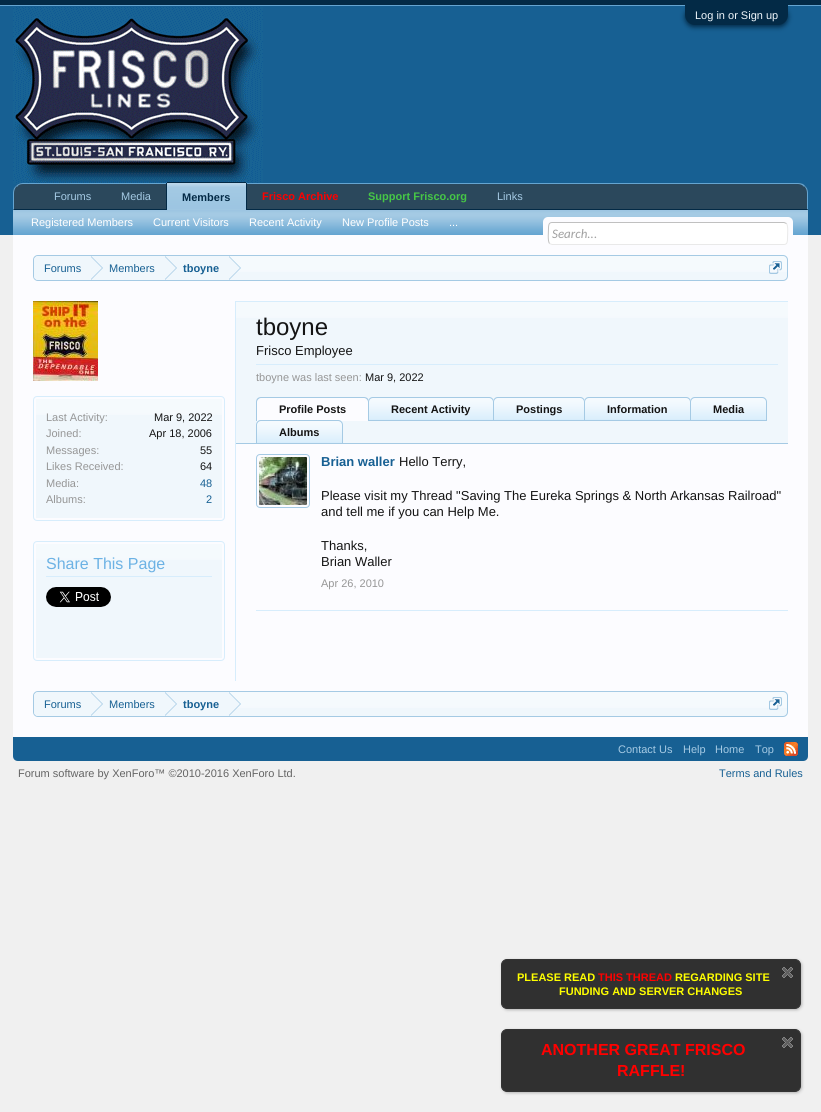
import math
import cairocffi as cairo

surface = cairo.ImageSurface(cairo.FORMAT_RGB24, 821, 1112)
cr = cairo.Context(surface)
options = cairo.FontOptions()
options.set_hint_metrics(cairo.HINT_METRICS_OFF)
options.set_hint_style(cairo.HINT_STYLE_NONE)
cr.set_font_options(options)
cr.set_miter_limit(4)


def use_color(code):
    cr.set_source_rgb(*(v / 255 for v in bytes.fromhex(code[-6:])))


def round_rect(x, y, w, h, r):
    cr.new_sub_path()
    for i, (u, v) in enumerate([(x + w - r, y + h - r), (x + r, y + h - r), (x + r, y + r), (x + w - r, y + r)]):
        cr.arc(u, v, r, i * math.pi / 2, (i + 1) * math.pi / 2)
    cr.close_path()


def shadow(x, y, w, h, r, blur, alpha):
    cr.push_group_with_content(cairo.CONTENT_ALPHA)
    cr.set_operator(cairo.OPERATOR_SOURCE)
    for i in range(15, -16, -2):
        e = blur * i / 6
        if min(w, h) + 2 * e > 0:
            cr.set_source_rgba(0, 0, 0, alpha * math.erfc((i - 1) / 8.5) / 2)
            round_rect(x - e, y - e, w + 2 * e, h + 2 * e, max(0, min(r + e + blur * .6, min(w, h) / 2 + e)))
            cr.fill()
    cr.mask(cr.pop_group())


def picture(path, x, y, w, h):
    cr.save()
    cr.set_source_surface(cairo.ImageSurface.create_from_png(path), x, y)
    cr.rectangle(x, y, w, h)
    cr.fill()
    cr.restore()


use_color("#f0f0f0")
cr.paint()
use_color("#032a46")
cr.rectangle(0, 0, 821, 5)
cr.fill()
use_color("#65a5d1")
cr.rectangle(0, 5, 821, 1)
cr.fill()
use_color("#176093")
cr.rectangle(0, 6, 821, 229)
cr.fill()
use_color("#032a46")
shadow(685, 7, 103, 20, 10, 2.5, 1)
use_color("#032a46")
cr.new_path()
cr.move_to(685, 5)
cr.line_to(788, 5)
cr.line_to(788, 15)
cr.curve_to(788, 20.5, 783.5, 25, 778, 25)
cr.line_to(695, 25)
cr.curve_to(689.5, 25, 685, 20.5, 685, 15)
cr.close_path()
cr.fill()
cr.select_font_face("Liberation Sans")
cr.set_font_size(11)
use_color("#f0f7fc")
cr.move_to(695, 19)
cr.show_text("Log in or Sign up")
picture("img1.png", 13, 7, 250, 177)
use_color("#2b485c")
cr.new_path()
cr.move_to(23, 183)
cr.line_to(798, 183)
cr.curve_to(803.5, 183, 808, 187.5, 808, 193)
cr.line_to(808, 210)
cr.line_to(13, 210)
cr.line_to(13, 193)
cr.curve_to(13, 187.5, 17.5, 183, 23, 183)
cr.close_path()
cr.fill()
use_color("#65a5d1")
cr.new_path()
cr.move_to(23, 183)
cr.curve_to(20, 183, 18, 184, 16, 186)
cr.line_to(17, 187)
cr.curve_to(18, 185, 20, 184, 23, 184)
cr.line_to(798, 184)
cr.curve_to(800, 184, 803, 185, 804, 187)
cr.line_to(805, 186)
cr.curve_to(804, 184, 801, 183, 798, 183)
cr.close_path()
cr.fill()
cr.new_path()
cr.move_to(808, 210)
cr.line_to(808, 193)
cr.curve_to(808, 190, 807, 187.5, 805, 186)
cr.line_to(804.5, 186.5)
cr.curve_to(806, 188, 807, 190.5, 807, 193)
cr.line_to(807, 209)
cr.close_path()
cr.fill()
use_color("#032a46")
cr.new_path()
cr.move_to(808, 210)
cr.line_to(807, 209)
cr.line_to(14, 209)
cr.line_to(13, 210)
cr.close_path()
cr.fill()
use_color("#65a5d1")
cr.new_path()
cr.move_to(13, 210)
cr.line_to(14, 209)
cr.line_to(14, 193)
cr.curve_to(14, 190.5, 15, 188, 16.5, 186.5)
cr.line_to(16, 186)
cr.curve_to(14, 187.5, 13, 190, 13, 193)
cr.close_path()
cr.fill()
use_color("#a5cae4")
cr.move_to(54, 200)
cr.show_text("Forums")
cr.move_to(121, 200)
cr.show_text("Media")
cr.select_font_face("Liberation Sans", cairo.FONT_SLANT_NORMAL, cairo.FONT_WEIGHT_BOLD)
use_color("#ff0000")
cr.move_to(262, 200)
cr.show_text("Frisco Archive")
use_color("#46c646")
cr.move_to(368, 200)
cr.show_text("Support Frisco.org")
cr.select_font_face("Liberation Sans")
use_color("#a5cae4")
cr.move_to(497, 200)
cr.show_text("Links")
use_color("#65a5d1")
cr.new_path()
cr.move_to(168, 182)
cr.line_to(245, 182)
cr.curve_to(246, 182, 247, 183, 247, 184)
cr.line_to(247, 210)
cr.line_to(166, 210)
cr.line_to(166, 184)
cr.curve_to(166, 183, 167, 182, 168, 182)
cr.close_path()
cr.fill()
picture("img2.png", 167, 183, 79, 27)
use_color("#032a46")
cr.rectangle(167, 182, 79, 1)
cr.fill()
cr.rectangle(246, 183, 1, 27)
cr.fill()
cr.rectangle(166, 183, 1, 27)
cr.fill()
cr.select_font_face("Liberation Sans", cairo.FONT_SLANT_NORMAL, cairo.FONT_WEIGHT_BOLD)
cr.move_to(182, 201)
cr.show_text("Members")
use_color("#65a5d1")
cr.rectangle(13, 210, 795, 25)
cr.fill()
picture("img3.png", 13, 210, 795, 24)
cr.select_font_face("Liberation Sans")
use_color("#ffffff")
cr.move_to(31, 226)
cr.show_text("Registered Members")
cr.move_to(153, 226)
cr.show_text("Current Visitors")
cr.move_to(249, 226)
cr.show_text("Recent Activity")
cr.move_to(342, 226)
cr.show_text("New Profile Posts")
cr.move_to(449, 226)
cr.show_text("...")
use_color("#fcfcff")
cr.rectangle(13, 235, 795, 502)
cr.fill()
round_rect(543, 217, 250, 28, 5)
cr.fill()
use_color("#ffffff")
round_rect(548, 222, 240, 23, 4)
cr.fill()
cr.new_path()
cr.move_to(786.5, 223.5)
cr.curve_to(788.5, 226, 787.5, 235.5, 787.5, 238.5)
cr.curve_to(787.5, 241, 787.5, 244.5, 784, 244.5)
cr.line_to(552, 244.5)
cr.line_to(549.5, 243.5)
use_color("#e9e9e9")
cr.set_line_width(1)
cr.stroke()
cr.new_path()
cr.move_to(549.5, 243.5)
cr.curve_to(547.5, 241, 548.5, 231.5, 548.5, 228.5)
cr.curve_to(548.5, 226, 548.5, 222.5, 552, 222.5)
cr.line_to(784, 222.5)
cr.line_to(786.5, 223.5)
use_color("#c0c0c0")
cr.stroke()
cr.select_font_face("Carlito", cairo.FONT_SLANT_ITALIC)
cr.set_font_size(13)
use_color("#a0a0a0")
cr.move_to(552, 238)
cr.show_text("Search...")
use_color("#f0f7fc")
round_rect(33, 255, 755, 26, 5)
cr.fill()
picture("img4.png", 33, 256, 755, 16)
round_rect(33.5, 255.5, 754, 25, 4.5)
use_color("#a5cae4")
cr.stroke()
cr.save()
round_rect(34, 256, 753, 24, 4)
cr.clip()
use_color("#f0f7fc")
cr.new_path()
cr.move_to(39, 256)
cr.line_to(91, 256)
cr.line_to(91, 281)
cr.line_to(39, 281)
cr.curve_to(36, 281, 34, 279, 34, 276)
cr.line_to(34, 261)
cr.curve_to(34, 258, 36, 256, 39, 256)
cr.close_path()
cr.fill()
cr.restore()
cr.select_font_face("Liberation Sans")
cr.set_font_size(11)
use_color("#176093")
cr.move_to(44, 272)
cr.show_text("Forums")
use_color("#f0f7fc")
cr.rectangle(91, 256, 138, 16)
cr.fill()
use_color("#a5cae4")
cr.new_path()
cr.move_to(91, 280)
cr.line_to(91, 256)
cr.line_to(103, 268)
cr.close_path()
cr.fill()
use_color("#f0f7fc")
cr.new_path()
cr.move_to(90, 280)
cr.line_to(90, 256)
cr.line_to(102, 268)
cr.close_path()
cr.fill()
use_color("#176093")
cr.move_to(109, 272)
cr.show_text("Members")
use_color("#a5cae4")
cr.new_path()
cr.move_to(165, 280)
cr.line_to(165, 256)
cr.line_to(177, 268)
cr.close_path()
cr.fill()
use_color("#f0f7fc")
cr.new_path()
cr.move_to(164, 280)
cr.line_to(164, 256)
cr.line_to(176, 268)
cr.close_path()
cr.fill()
cr.select_font_face("Liberation Sans", cairo.FONT_SLANT_NORMAL, cairo.FONT_WEIGHT_BOLD)
use_color("#176093")
cr.move_to(183, 272)
cr.show_text("tboyne")
use_color("#a5cae4")
cr.new_path()
cr.move_to(229, 280)
cr.line_to(229, 256)
cr.line_to(241, 268)
cr.close_path()
cr.fill()
use_color("#f0f7fc")
cr.new_path()
cr.move_to(228, 280)
cr.line_to(228, 256)
cr.line_to(240, 268)
cr.close_path()
cr.fill()
picture("img5.png", 769, 261, 13, 13)
use_color("#d7edfc")
cr.rectangle(235, 301, 1, 380)
cr.fill()
picture("img6.png", 33, 301, 65, 80)
round_rect(33.5, 396.5, 191, 124, 3.5)
cr.stroke()
use_color("#f0f7fc")
cr.rectangle(36, 399, 186, 119)
cr.fill()
picture("img7.png", 36, 399, 186, 16)
cr.select_font_face("Liberation Sans")
use_color("#969696")
cr.move_to(46, 421)
cr.show_text("Last Activity:")
use_color("#141414")
cr.move_to(154, 421)
cr.show_text("Mar 9, 2022")
use_color("#969696")
cr.move_to(46, 437)
cr.show_text("Joined:")
use_color("#141414")
cr.move_to(149, 437)
cr.show_text("Apr 18, 2006")
use_color("#969696")
cr.move_to(46, 454)
cr.show_text("Messages:")
use_color("#141414")
cr.move_to(200, 454)
cr.show_text("55")
use_color("#969696")
cr.move_to(46, 470)
cr.show_text("Likes Received:")
use_color("#141414")
cr.move_to(200, 470)
cr.show_text("64")
use_color("#969696")
cr.move_to(46, 487)
cr.show_text("Media:")
use_color("#176093")
cr.move_to(200, 487)
cr.show_text("48")
use_color("#969696")
cr.move_to(46, 503)
cr.show_text("Albums:")
use_color("#176093")
cr.move_to(206, 503)
cr.show_text("2")
round_rect(33.5, 541.5, 191, 119, 3.5)
use_color("#d7edfc")
cr.stroke()
use_color("#f0f7fc")
cr.rectangle(36, 544, 186, 114)
cr.fill()
picture("img7.png", 36, 544, 186, 16)
use_color("#d7edfc")
cr.rectangle(46, 576, 166, 1)
cr.fill()
cr.set_font_size(16)
use_color("#6cb2e4")
cr.move_to(46, 569)
cr.show_text("Share This Page")
picture("img8.png", 46, 587, 65, 20)
use_color("#d7edfc")
cr.rectangle(236, 301, 552, 1)
cr.fill()
use_color("#f0f7fc")
cr.rectangle(236, 302, 552, 141)
cr.fill()
picture("img9.png", 236, 302, 552, 16)
cr.set_font_size(24)
use_color("#141414")
cr.move_to(256, 335)
cr.show_text("tboyne")
cr.set_font_size(13)
cr.move_to(256, 355)
cr.show_text("Frisco Employee")
use_color("#d7edfc")
cr.rectangle(256, 364, 522, 1)
cr.fill()
cr.set_font_size(11)
use_color("#969696")
cr.move_to(256, 381)
cr.show_text("tboyne was last seen:")
use_color("#141414")
cr.move_to(365, 381)
cr.show_text("Mar 9, 2022")
use_color("#a5cae4")
cr.rectangle(236, 443, 552, 1)
cr.fill()
use_color("#fcfcff")
cr.new_path()
cr.move_to(261, 397)
cr.line_to(364, 397)
cr.curve_to(367, 397, 369, 399, 369, 402)
cr.line_to(369, 421)
cr.line_to(256, 421)
cr.line_to(256, 402)
cr.curve_to(256, 399, 258, 397, 261, 397)
cr.close_path()
cr.fill()
use_color("#a5cae4")
cr.set_fill_rule(cairo.FILL_RULE_EVEN_ODD)
cr.new_path()
cr.move_to(261, 397)
cr.line_to(364, 397)
cr.curve_to(367, 397, 369, 399, 369, 402)
cr.line_to(369, 421)
cr.line_to(256, 421)
cr.line_to(256, 402)
cr.curve_to(256, 399, 258, 397, 261, 397)
cr.close_path()
cr.move_to(261, 398)
cr.line_to(364, 398)
cr.curve_to(366, 398, 368, 400, 368, 402)
cr.line_to(368, 421)
cr.line_to(257, 421)
cr.line_to(257, 402)
cr.curve_to(257, 400, 259, 398, 261, 398)
cr.close_path()
cr.fill()
cr.select_font_face("Liberation Sans", cairo.FONT_SLANT_NORMAL, cairo.FONT_WEIGHT_BOLD)
use_color("#141414")
cr.move_to(279, 413)
cr.show_text("Profile Posts")
use_color("#d7edfc")
cr.new_path()
cr.move_to(373, 397)
cr.line_to(489, 397)
cr.curve_to(492, 397, 494, 399, 494, 402)
cr.line_to(494, 421)
cr.line_to(368, 421)
cr.line_to(368, 402)
cr.curve_to(368, 399, 370, 397, 373, 397)
cr.close_path()
cr.fill()
picture("img10.png", 368, 398, 126, 21)
cr.new_path()
cr.move_to(373, 397.5)
cr.line_to(489, 397.5)
cr.curve_to(491.5, 397.5, 493.5, 399.5, 493.5, 402)
cr.line_to(493.5, 420.5)
cr.line_to(368.5, 420.5)
cr.line_to(368.5, 402)
cr.curve_to(368.5, 399.5, 370.5, 397.5, 373, 397.5)
cr.close_path()
use_color("#a5cae4")
cr.stroke()
use_color("#141414")
cr.move_to(391, 413)
cr.show_text("Recent Activity")
use_color("#d7edfc")
cr.new_path()
cr.move_to(498, 397)
cr.line_to(580, 397)
cr.curve_to(583, 397, 585, 399, 585, 402)
cr.line_to(585, 421)
cr.line_to(493, 421)
cr.line_to(493, 402)
cr.curve_to(493, 399, 495, 397, 498, 397)
cr.close_path()
cr.fill()
picture("img11.png", 493, 398, 92, 21)
cr.new_path()
cr.move_to(498, 397.5)
cr.line_to(580, 397.5)
cr.curve_to(582.5, 397.5, 584.5, 399.5, 584.5, 402)
cr.line_to(584.5, 420.5)
cr.line_to(493.5, 420.5)
cr.line_to(493.5, 402)
cr.curve_to(493.5, 399.5, 495.5, 397.5, 498, 397.5)
cr.close_path()
use_color("#a5cae4")
cr.stroke()
use_color("#141414")
cr.move_to(516, 413)
cr.show_text("Postings")
use_color("#d7edfc")
cr.new_path()
cr.move_to(589, 397)
cr.line_to(686, 397)
cr.curve_to(689, 397, 691, 399, 691, 402)
cr.line_to(691, 421)
cr.line_to(584, 421)
cr.line_to(584, 402)
cr.curve_to(584, 399, 586, 397, 589, 397)
cr.close_path()
cr.fill()
picture("img12.png", 584, 398, 107, 21)
cr.new_path()
cr.move_to(589, 397.5)
cr.line_to(686, 397.5)
cr.curve_to(688.5, 397.5, 690.5, 399.5, 690.5, 402)
cr.line_to(690.5, 420.5)
cr.line_to(584.5, 420.5)
cr.line_to(584.5, 402)
cr.curve_to(584.5, 399.5, 586.5, 397.5, 589, 397.5)
cr.close_path()
use_color("#a5cae4")
cr.stroke()
use_color("#141414")
cr.move_to(607, 413)
cr.show_text("Information")
use_color("#d7edfc")
cr.new_path()
cr.move_to(695, 397)
cr.line_to(762, 397)
cr.curve_to(765, 397, 767, 399, 767, 402)
cr.line_to(767, 421)
cr.line_to(690, 421)
cr.line_to(690, 402)
cr.curve_to(690, 399, 692, 397, 695, 397)
cr.close_path()
cr.fill()
picture("img13.png", 690, 398, 77, 21)
cr.new_path()
cr.move_to(695, 397.5)
cr.line_to(762, 397.5)
cr.curve_to(764.5, 397.5, 766.5, 399.5, 766.5, 402)
cr.line_to(766.5, 420.5)
cr.line_to(690.5, 420.5)
cr.line_to(690.5, 402)
cr.curve_to(690.5, 399.5, 692.5, 397.5, 695, 397.5)
cr.close_path()
use_color("#a5cae4")
cr.stroke()
use_color("#141414")
cr.move_to(713, 413)
cr.show_text("Media")
use_color("#d7edfc")
cr.new_path()
cr.move_to(261, 420)
cr.line_to(338, 420)
cr.curve_to(341, 420, 343, 422, 343, 425)
cr.line_to(343, 444)
cr.line_to(256, 444)
cr.line_to(256, 425)
cr.curve_to(256, 422, 258, 420, 261, 420)
cr.close_path()
cr.fill()
picture("img14.png", 256, 421, 87, 21)
cr.new_path()
cr.move_to(261, 420.5)
cr.line_to(338, 420.5)
cr.curve_to(340.5, 420.5, 342.5, 422.5, 342.5, 425)
cr.line_to(342.5, 443.5)
cr.line_to(256.5, 443.5)
cr.line_to(256.5, 425)
cr.curve_to(256.5, 422.5, 258.5, 420.5, 261, 420.5)
cr.close_path()
use_color("#a5cae4")
cr.stroke()
use_color("#141414")
cr.move_to(279, 436)
cr.show_text("Albums")
use_color("#d7edfc")
cr.rectangle(256, 610, 532, 1)
cr.fill()
round_rect(256.5, 454.5, 53, 53, 3.5)
use_color("#a5cae4")
cr.stroke()
picture("img15.png", 259, 457, 48, 48)
cr.set_font_size(13)
use_color("#176093")
cr.move_to(321, 466)
cr.show_text("Brian waller")
cr.select_font_face("Liberation Sans")
use_color("#141414")
cr.move_to(399, 466)
cr.show_text("Hello Terry,")
cr.move_to(321, 500)
cr.show_text("Please visit my Thread \"Saving The Eureka Springs & North Arkansas Railroad\"")
cr.move_to(321, 516)
cr.show_text("and tell me if you can Help Me.")
cr.move_to(321, 550)
cr.show_text("Thanks,")
cr.move_to(321, 566)
cr.show_text("Brian Waller")
cr.set_font_size(11)
use_color("#969696")
cr.move_to(321, 587)
cr.show_text("Apr 26, 2010")
use_color("#f0f7fc")
round_rect(33, 691, 755, 26, 5)
cr.fill()
picture("img4.png", 33, 692, 755, 16)
round_rect(33.5, 691.5, 754, 25, 4.5)
use_color("#a5cae4")
cr.stroke()
cr.save()
cr.set_fill_rule(cairo.FILL_RULE_WINDING)
round_rect(34, 692, 753, 24, 4)
cr.clip()
use_color("#f0f7fc")
cr.new_path()
cr.move_to(39, 692)
cr.line_to(91, 692)
cr.line_to(91, 717)
cr.line_to(39, 717)
cr.curve_to(36, 717, 34, 715, 34, 712)
cr.line_to(34, 697)
cr.curve_to(34, 694, 36, 692, 39, 692)
cr.close_path()
cr.fill()
cr.restore()
use_color("#176093")
cr.move_to(44, 708)
cr.show_text("Forums")
use_color("#f0f7fc")
cr.rectangle(91, 692, 138, 16)
cr.fill()
use_color("#a5cae4")
cr.set_fill_rule(cairo.FILL_RULE_WINDING)
cr.new_path()
cr.move_to(91, 716)
cr.line_to(91, 692)
cr.line_to(103, 704)
cr.close_path()
cr.fill()
use_color("#f0f7fc")
cr.new_path()
cr.move_to(90, 716)
cr.line_to(90, 692)
cr.line_to(102, 704)
cr.close_path()
cr.fill()
use_color("#176093")
cr.move_to(109, 708)
cr.show_text("Members")
use_color("#a5cae4")
cr.new_path()
cr.move_to(165, 716)
cr.line_to(165, 692)
cr.line_to(177, 704)
cr.close_path()
cr.fill()
use_color("#f0f7fc")
cr.new_path()
cr.move_to(164, 716)
cr.line_to(164, 692)
cr.line_to(176, 704)
cr.close_path()
cr.fill()
cr.select_font_face("Liberation Sans", cairo.FONT_SLANT_NORMAL, cairo.FONT_WEIGHT_BOLD)
use_color("#176093")
cr.move_to(183, 708)
cr.show_text("tboyne")
use_color("#a5cae4")
cr.new_path()
cr.move_to(229, 716)
cr.line_to(229, 692)
cr.line_to(241, 704)
cr.close_path()
cr.fill()
use_color("#f0f7fc")
cr.new_path()
cr.move_to(228, 716)
cr.line_to(228, 692)
cr.line_to(240, 704)
cr.close_path()
cr.fill()
picture("img5.png", 769, 697, 13, 13)
cr.save()
cr.set_fill_rule(cairo.FILL_RULE_EVEN_ODD)
cr.new_path()
cr.move_to(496, 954)
cr.line_to(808, 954)
cr.line_to(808, 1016)
cr.line_to(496, 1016)
cr.close_path()
cr.move_to(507, 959)
cr.line_to(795, 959)
cr.curve_to(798.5, 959, 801, 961.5, 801, 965)
cr.line_to(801, 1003)
cr.curve_to(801, 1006.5, 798.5, 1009, 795, 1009)
cr.line_to(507, 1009)
cr.curve_to(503.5, 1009, 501, 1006.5, 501, 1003)
cr.line_to(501, 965)
cr.curve_to(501, 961.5, 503.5, 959, 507, 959)
cr.close_path()
cr.clip()
use_color("#000000")
shadow(502, 960, 300, 50, 6, 1.5, 0.25)
cr.restore()
cr.set_source_rgba(0, 0, 0, 0.8)
round_rect(501.5, 959.5, 299, 49, 5.5)
cr.fill_preserve()
use_color("#333333")
cr.stroke()
use_color("#ffff00")
cr.move_to(517, 981)
cr.show_text("PLEASE READ")
use_color("#ff0000")
cr.move_to(598, 981)
cr.show_text("THIS THREAD")
use_color("#ffff00")
cr.move_to(675, 981)
cr.show_text("REGARDING SITE")
cr.move_to(559, 995)
cr.show_text("FUNDING AND SERVER CHANGES")
picture("img16.png", 782, 967, 11, 11)
cr.save()
cr.set_fill_rule(cairo.FILL_RULE_EVEN_ODD)
cr.new_path()
cr.move_to(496, 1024)
cr.line_to(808, 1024)
cr.line_to(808, 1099)
cr.line_to(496, 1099)
cr.close_path()
cr.move_to(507, 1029)
cr.line_to(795, 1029)
cr.curve_to(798.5, 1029, 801, 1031.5, 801, 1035)
cr.line_to(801, 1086)
cr.curve_to(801, 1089.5, 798.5, 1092, 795, 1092)
cr.line_to(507, 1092)
cr.curve_to(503.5, 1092, 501, 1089.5, 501, 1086)
cr.line_to(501, 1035)
cr.curve_to(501, 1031.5, 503.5, 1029, 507, 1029)
cr.close_path()
cr.clip()
use_color("#000000")
shadow(502, 1030, 300, 63, 6, 1.5, 0.25)
cr.restore()
cr.set_source_rgba(0, 0, 0, 0.8)
round_rect(501.5, 1029.5, 299, 62, 5.5)
cr.fill_preserve()
use_color("#333333")
cr.stroke()
cr.set_font_size(16)
use_color("#ff0000")
cr.move_to(541, 1055)
cr.show_text("ANOTHER GREAT FRISCO")
cr.move_to(617, 1076)
cr.show_text("RAFFLE!")
picture("img16.png", 782, 1037, 11, 11)
use_color("#176093")
cr.new_path()
cr.move_to(13, 737)
cr.line_to(808, 737)
cr.line_to(808, 756)
cr.curve_to(808, 759, 806, 761, 803, 761)
cr.line_to(18, 761)
cr.curve_to(15, 761, 13, 759, 13, 756)
cr.close_path()
cr.fill()
cr.select_font_face("Liberation Sans")
cr.set_font_size(11)
use_color("#a5cae4")
cr.move_to(618, 753)
cr.show_text("Contact Us")
cr.move_to(683, 753)
cr.show_text("Help")
cr.move_to(715, 753)
cr.show_text("Home")
cr.move_to(755, 753)
cr.show_text("Top")
picture("img17.png", 784, 742, 14, 14)
use_color("#646464")
cr.move_to(18, 777)
cr.show_text("Forum software by XenForo™ ©2010-2016 XenForo Ltd.")
use_color("#176093")
cr.move_to(719, 777)
cr.show_text("Terms and Rules")
surface.write_to_png("result.png")
